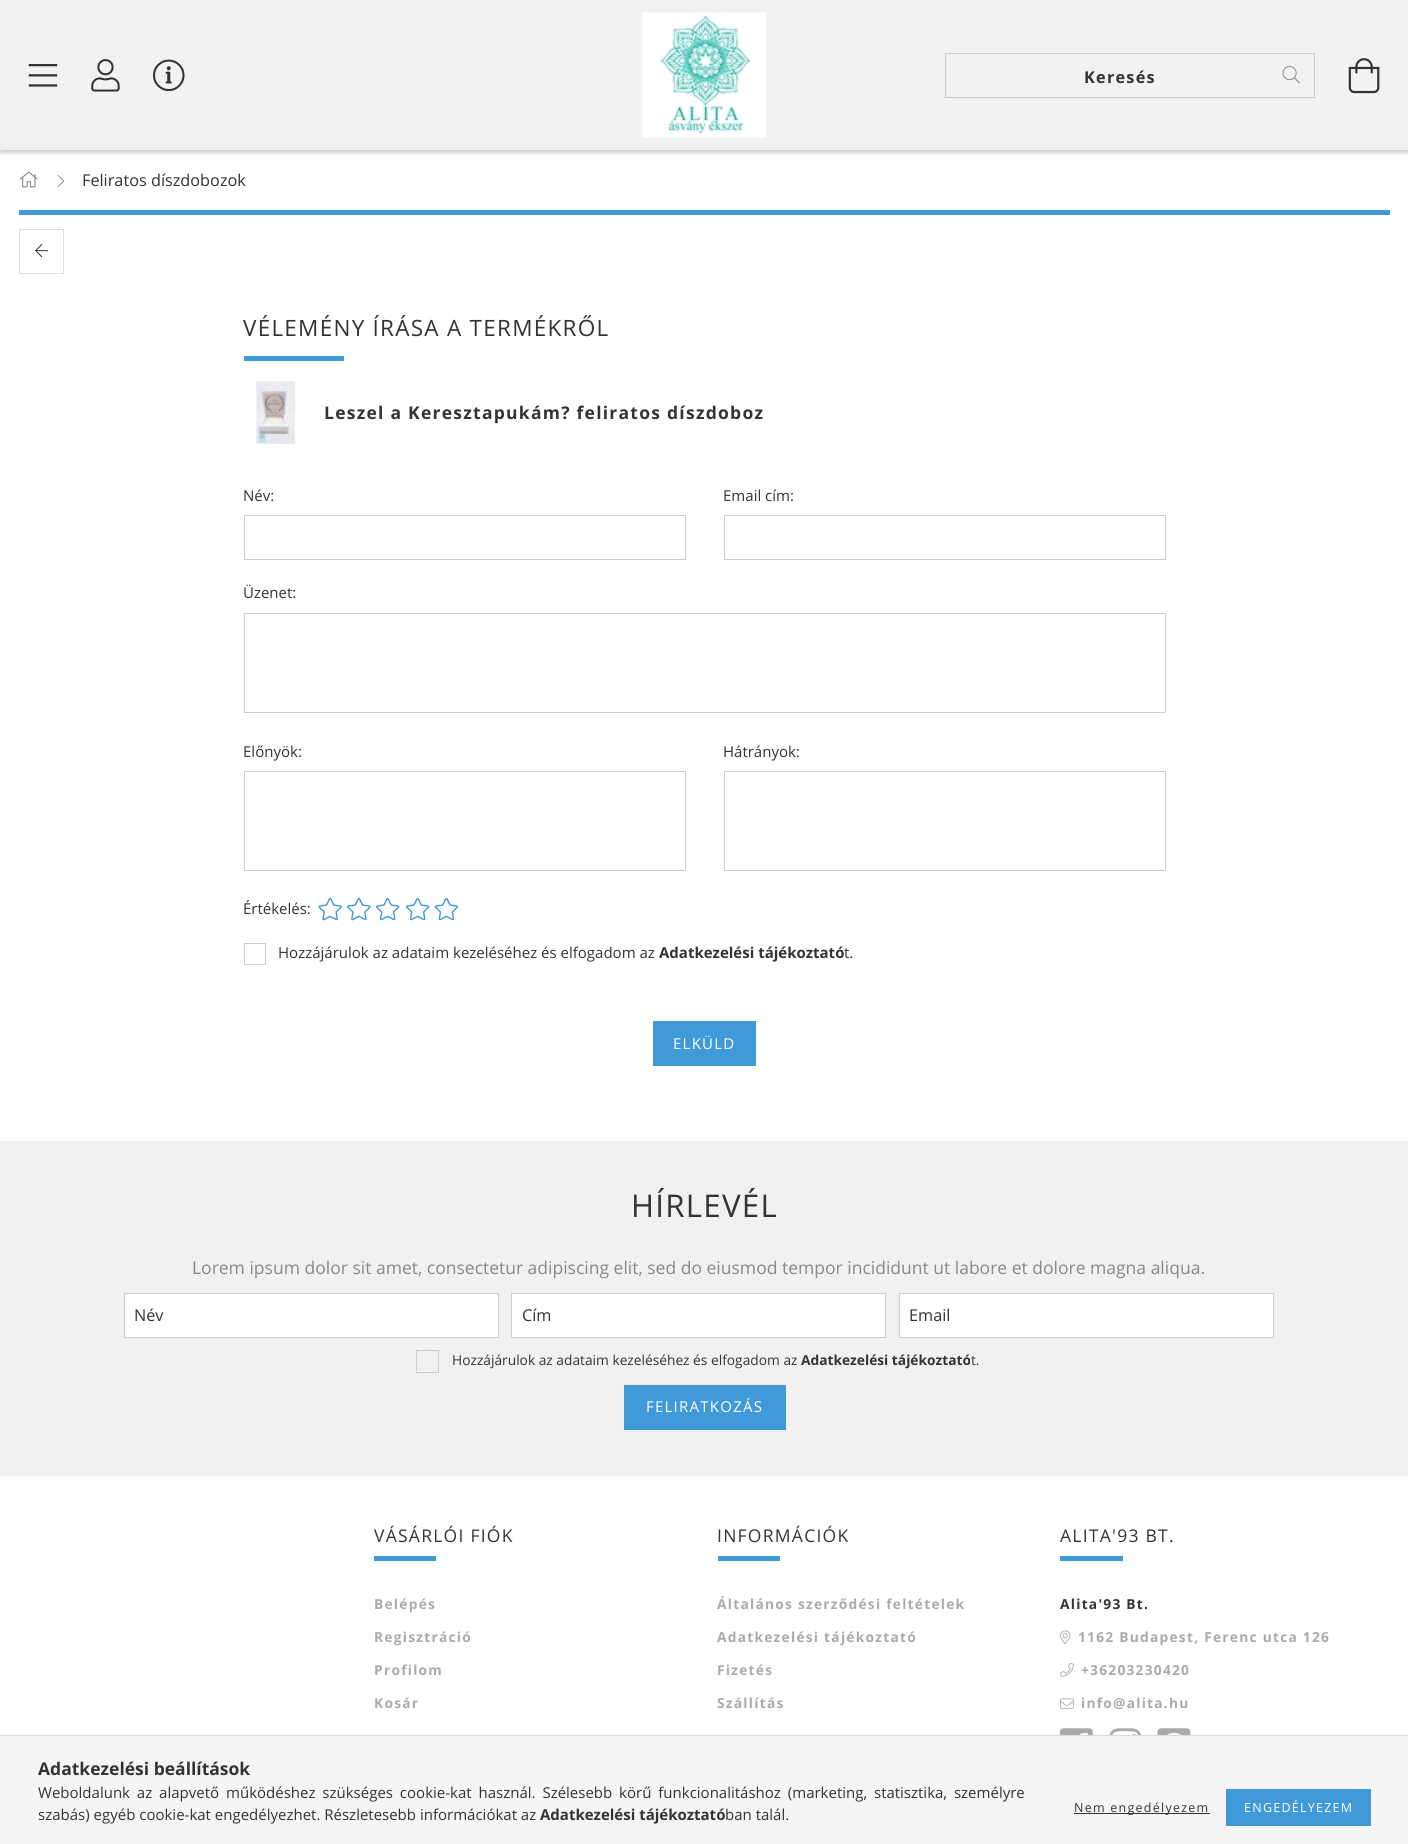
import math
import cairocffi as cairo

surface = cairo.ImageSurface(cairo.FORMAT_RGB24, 1408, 1844)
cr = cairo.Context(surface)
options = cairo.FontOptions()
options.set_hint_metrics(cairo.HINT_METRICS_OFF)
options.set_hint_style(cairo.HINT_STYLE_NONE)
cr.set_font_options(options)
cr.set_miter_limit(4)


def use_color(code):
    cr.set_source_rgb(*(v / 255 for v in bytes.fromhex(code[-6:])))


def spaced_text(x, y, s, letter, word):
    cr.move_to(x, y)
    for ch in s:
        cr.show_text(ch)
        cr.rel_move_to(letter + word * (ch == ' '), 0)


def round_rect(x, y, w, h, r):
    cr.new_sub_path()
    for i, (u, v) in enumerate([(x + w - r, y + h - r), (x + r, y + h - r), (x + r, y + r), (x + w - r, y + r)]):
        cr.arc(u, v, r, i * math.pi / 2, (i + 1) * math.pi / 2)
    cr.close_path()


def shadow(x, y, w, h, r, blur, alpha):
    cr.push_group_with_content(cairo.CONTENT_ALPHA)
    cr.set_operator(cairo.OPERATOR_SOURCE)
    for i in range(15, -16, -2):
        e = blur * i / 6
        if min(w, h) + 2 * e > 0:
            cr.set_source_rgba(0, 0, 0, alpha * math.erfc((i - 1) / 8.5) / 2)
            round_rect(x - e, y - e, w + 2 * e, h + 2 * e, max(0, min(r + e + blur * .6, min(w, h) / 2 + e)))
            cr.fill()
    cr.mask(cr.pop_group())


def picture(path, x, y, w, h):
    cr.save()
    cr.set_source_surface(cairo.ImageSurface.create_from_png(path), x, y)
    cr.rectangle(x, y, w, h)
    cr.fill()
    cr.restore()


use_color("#ffffff")
cr.paint()
use_color("#000000")
shadow(0, 3, 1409, 150, 0, 2, 0.2)
use_color("#f2f2f2")
cr.rectangle(0, 0, 1408, 150)
cr.fill()
picture("img1.png", 28, 64, 30, 23)
picture("img2.png", 91, 59, 29, 33)
picture("img3.png", 153, 59, 32, 33)
picture("img4.png", 642, 12, 124, 126)
cr.rectangle(945.5, 53.5, 369, 44)
use_color("#cccccc")
cr.set_line_width(1)
cr.stroke()
cr.select_font_face("Open Sans", cairo.FONT_SLANT_NORMAL, cairo.FONT_WEIGHT_BOLD)
cr.set_font_size(16.25)
use_color("#333333")
spaced_text(1084, 83, "Keresés", 1.25, 0)
picture("img5.png", 1282, 65, 18, 19)
picture("img6.png", 1348, 58, 32, 36)
picture("img7.png", 19, 171, 19, 17)
picture("img8.png", 57, 175, 8, 12)
cr.select_font_face("Open Sans")
cr.move_to(82, 186)
cr.show_text("Feliratos díszdobozok")
use_color("#4099d8")
cr.rectangle(19, 210, 1371, 5)
cr.fill()
cr.rectangle(19.5, 229.5, 44, 44)
use_color("#dddddd")
cr.stroke()
picture("img9.png", 35, 244, 14, 14)
cr.set_font_size(22.5)
use_color("#333333")
spaced_text(243, 336, "VÉLEMÉNY ÍRÁSA A TERMÉKRŐL", 1.25, 0)
use_color("#4099d8")
cr.rectangle(244, 356, 100, 5)
cr.fill()
picture("img10.png", 254, 381, 42, 63)
cr.select_font_face("Open Sans", cairo.FONT_SLANT_NORMAL, cairo.FONT_WEIGHT_BOLD)
cr.set_font_size(17.5)
use_color("#333333")
spaced_text(324, 419, "Leszel a Keresztapukám? feliratos díszdoboz", 1.25, 0)
cr.select_font_face("Open Sans")
cr.set_font_size(15)
cr.move_to(243, 501)
cr.show_text("Név:")
cr.rectangle(244.5, 515.5, 441, 44)
use_color("#cccccc")
cr.stroke()
use_color("#333333")
cr.move_to(723, 501)
cr.show_text("Email cím:")
cr.rectangle(724.5, 515.5, 441, 44)
use_color("#cccccc")
cr.stroke()
use_color("#333333")
cr.move_to(243, 598)
cr.show_text("Üzenet:")
cr.rectangle(244.5, 613.5, 921, 99)
use_color("#cccccc")
cr.stroke()
use_color("#333333")
cr.move_to(243, 757)
cr.show_text("Előnyök:")
cr.rectangle(244.5, 771.5, 441, 99)
use_color("#cccccc")
cr.stroke()
use_color("#333333")
cr.move_to(723, 757)
cr.show_text("Hátrányok:")
cr.rectangle(724.5, 771.5, 441, 99)
use_color("#cccccc")
cr.stroke()
use_color("#333333")
cr.move_to(243, 914)
cr.show_text("Értékelés:")
picture("img11.png", 318, 897, 24, 24)
picture("img12.png", 347, 897, 24, 24)
picture("img13.png", 375, 897, 25, 24)
picture("img13.png", 405, 897, 25, 24)
picture("img14.png", 434, 897, 25, 24)
cr.rectangle(244.5, 943.5, 21, 21)
use_color("#cccccc")
cr.stroke()
use_color("#333333")
cr.move_to(278, 958)
cr.show_text("Hozzájárulok az adataim kezeléséhez és elfogadom az")
cr.select_font_face("Open Sans", cairo.FONT_SLANT_NORMAL, cairo.FONT_WEIGHT_BOLD)
cr.move_to(659, 958)
cr.show_text("Adatkezelési tájékoztató")
cr.select_font_face("Open Sans")
cr.move_to(844, 958)
cr.show_text("t.")
use_color("#4099d8")
cr.rectangle(653, 1021, 103, 45)
cr.fill()
use_color("#ffffff")
spaced_text(673, 1049, "ELKÜLD", 1.25, 0)
use_color("#f1f1f1")
cr.rectangle(0, 1141, 1408, 335)
cr.fill()
cr.set_font_size(31.25)
use_color("#333333")
spaced_text(631, 1217, "HÍRLEVÉL", 1.25, 0)
cr.set_font_size(17.5)
use_color("#888888")
cr.move_to(192, 1274)
cr.show_text("Lorem ipsum dolor sit amet, consectetur adipiscing elit, sed do eiusmod tempor incididunt ut labore et dolore magna aliqua.")
use_color("#ffffff")
cr.rectangle(124.5, 1293.5, 374, 44)
cr.fill_preserve()
use_color("#cccccc")
cr.stroke()
cr.set_font_size(16.25)
use_color("#333333")
cr.move_to(134, 1321)
cr.show_text("Név")
use_color("#ffffff")
cr.rectangle(511.5, 1293.5, 374, 44)
cr.fill_preserve()
use_color("#cccccc")
cr.stroke()
use_color("#333333")
cr.move_to(522, 1321)
cr.show_text("Cím")
use_color("#ffffff")
cr.rectangle(899.5, 1293.5, 374, 44)
cr.fill_preserve()
use_color("#cccccc")
cr.stroke()
use_color("#333333")
cr.move_to(909, 1321)
cr.show_text("Email")
cr.rectangle(416.5, 1350.5, 22, 22)
use_color("#cccccc")
cr.stroke()
cr.set_font_size(13.75)
use_color("#333333")
cr.move_to(452, 1365)
cr.show_text("Hozzájárulok az adataim kezeléséhez és elfogadom az")
cr.select_font_face("Open Sans", cairo.FONT_SLANT_NORMAL, cairo.FONT_WEIGHT_BOLD)
cr.move_to(801, 1365)
cr.show_text("Adatkezelési tájékoztató")
cr.select_font_face("Open Sans")
cr.move_to(971, 1365)
cr.show_text("t.")
use_color("#4099d8")
cr.rectangle(624, 1385, 162, 45)
cr.fill()
cr.set_font_size(15)
use_color("#ffffff")
spaced_text(646, 1412, "FELIRATKOZÁS", 1.25, 0)
cr.set_font_size(17.5)
use_color("#333333")
spaced_text(374, 1542, "VÁSÁRLÓI FIÓK", 1.25, 0)
use_color("#4099d8")
cr.rectangle(374, 1556, 62, 5)
cr.fill()
cr.select_font_face("Open Sans", cairo.FONT_SLANT_NORMAL, cairo.FONT_WEIGHT_BOLD)
cr.set_font_size(13.75)
use_color("#aaaaaa")
spaced_text(374, 1609, "Belépés", 1.25, 0)
spaced_text(374, 1642, "Regisztráció", 1.25, 0)
spaced_text(374, 1675, "Profilom", 1.25, 0)
spaced_text(374, 1708, "Kosár", 1.25, 0)
cr.select_font_face("Open Sans")
cr.set_font_size(17.5)
use_color("#333333")
spaced_text(717, 1542, "INFORMÁCIÓK", 1.25, 0)
use_color("#4099d8")
cr.rectangle(718, 1556, 62, 5)
cr.fill()
cr.select_font_face("Open Sans", cairo.FONT_SLANT_NORMAL, cairo.FONT_WEIGHT_BOLD)
cr.set_font_size(13.75)
use_color("#aaaaaa")
spaced_text(717, 1609, "Általános szerződési feltételek", 1.25, 0)
spaced_text(717, 1642, "Adatkezelési tájékoztató", 1.25, 0)
spaced_text(717, 1675, "Fizetés", 1.25, 0)
spaced_text(717, 1708, "Szállítás", 1.25, 0)
cr.select_font_face("Open Sans")
cr.set_font_size(17.5)
use_color("#333333")
spaced_text(1060, 1542, "ALITA'93 BT.", 1.25, 0)
use_color("#4099d8")
cr.rectangle(1060, 1556, 63, 5)
cr.fill()
cr.select_font_face("Open Sans", cairo.FONT_SLANT_NORMAL, cairo.FONT_WEIGHT_BOLD)
cr.set_font_size(13.75)
use_color("#333333")
spaced_text(1060, 1609, "Alita'93 Bt.", 1.25, 0)
picture("img15.png", 1060, 1630, 11, 15)
use_color("#aaaaaa")
spaced_text(1078, 1642, "1162 Budapest, Ferenc utca 126", 1.25, 0)
picture("img16.png", 1060, 1663, 14, 14)
spaced_text(1081, 1675, "+36203230420", 1.25, 0)
picture("img17.png", 1060, 1698, 14, 11)
spaced_text(1081, 1708, "info@alita.hu", 1.25, 0)
picture("img18.png", 1060, 1728, 33, 7)
picture("img19.png", 1109, 1728, 32, 7)
picture("img20.png", 1157, 1728, 34, 7)
use_color("#f5f5f5")
cr.rectangle(0, 1736, 1408, 108)
cr.fill()
use_color("#dddddd")
cr.rectangle(0, 1735, 1408, 1)
cr.fill()
cr.set_font_size(17.5)
use_color("#333333")
cr.move_to(38, 1775)
cr.show_text("Adatkezelési beállítások")
cr.select_font_face("Open Sans")
cr.set_font_size(15)
spaced_text(38, 1798, "Weboldalunk az alapvető működéshez szükséges cookie-kat használ. Szélesebb körű funkcionalitáshoz (marketing, statisztika, személyre", 0, 3)
cr.move_to(38, 1820)
cr.show_text("szabás) egyéb cookie-kat engedélyezhet. Részletesebb információkat az")
cr.select_font_face("Open Sans", cairo.FONT_SLANT_NORMAL, cairo.FONT_WEIGHT_BOLD)
cr.move_to(540, 1820)
cr.show_text("Adatkezelési tájékoztató")
cr.select_font_face("Open Sans")
cr.move_to(725, 1820)
cr.show_text("ban talál.")
cr.rectangle(1074, 1813, 136, 1)
cr.fill()
cr.set_font_size(12.5)
spaced_text(1074, 1812, "Nem engedélyezem", 1.25, 0)
use_color("#4099d8")
cr.rectangle(1226, 1789, 145, 37)
cr.fill()
use_color("#ffffff")
spaced_text(1244, 1812, "ENGEDÉLYEZEM", 1.25, 0)
surface.write_to_png("result.png")
